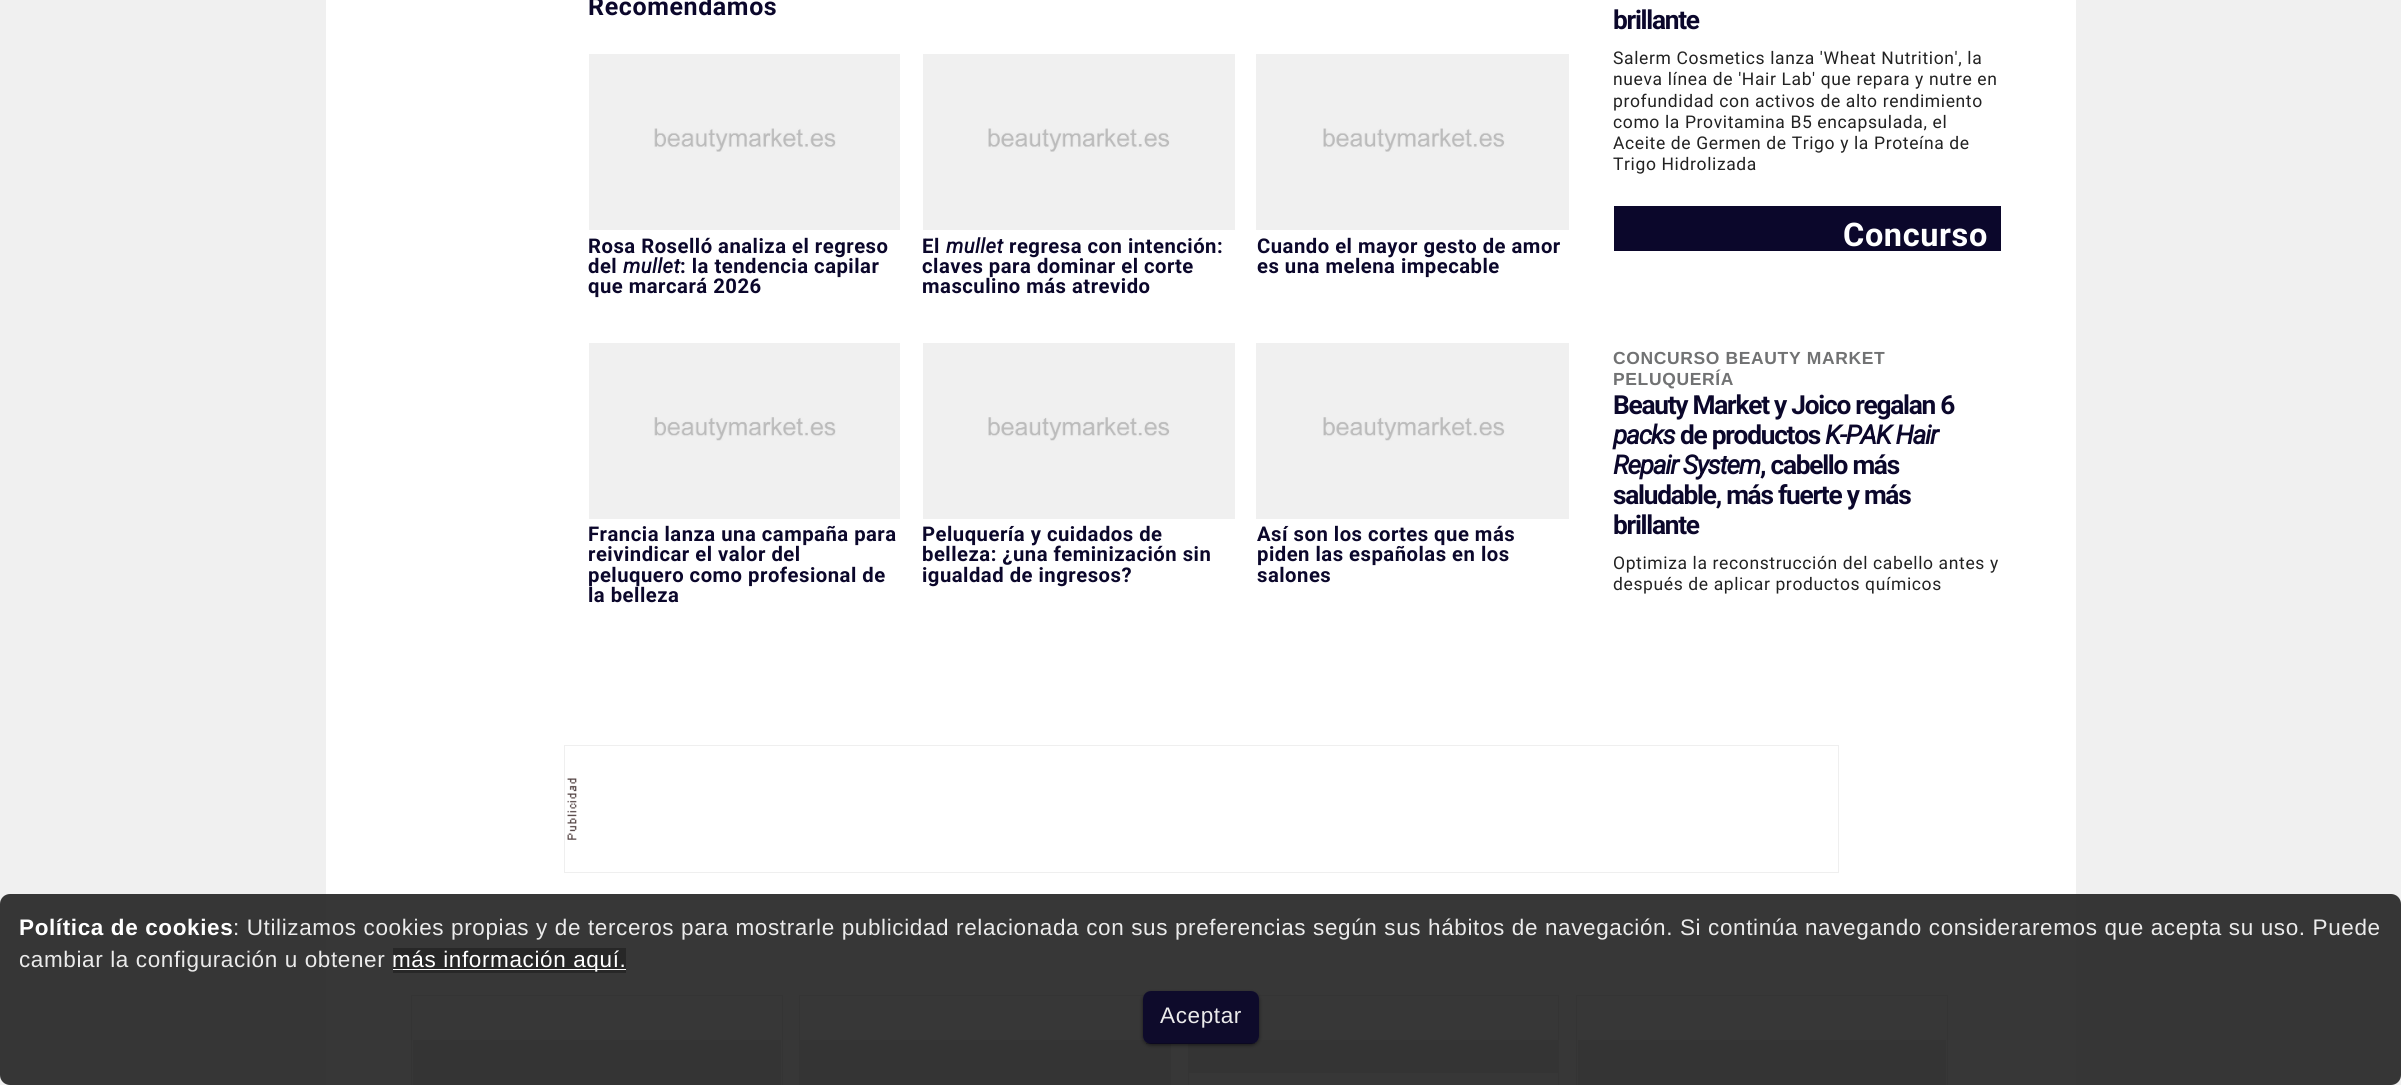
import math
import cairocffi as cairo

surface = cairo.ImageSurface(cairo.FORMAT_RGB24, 2401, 1085)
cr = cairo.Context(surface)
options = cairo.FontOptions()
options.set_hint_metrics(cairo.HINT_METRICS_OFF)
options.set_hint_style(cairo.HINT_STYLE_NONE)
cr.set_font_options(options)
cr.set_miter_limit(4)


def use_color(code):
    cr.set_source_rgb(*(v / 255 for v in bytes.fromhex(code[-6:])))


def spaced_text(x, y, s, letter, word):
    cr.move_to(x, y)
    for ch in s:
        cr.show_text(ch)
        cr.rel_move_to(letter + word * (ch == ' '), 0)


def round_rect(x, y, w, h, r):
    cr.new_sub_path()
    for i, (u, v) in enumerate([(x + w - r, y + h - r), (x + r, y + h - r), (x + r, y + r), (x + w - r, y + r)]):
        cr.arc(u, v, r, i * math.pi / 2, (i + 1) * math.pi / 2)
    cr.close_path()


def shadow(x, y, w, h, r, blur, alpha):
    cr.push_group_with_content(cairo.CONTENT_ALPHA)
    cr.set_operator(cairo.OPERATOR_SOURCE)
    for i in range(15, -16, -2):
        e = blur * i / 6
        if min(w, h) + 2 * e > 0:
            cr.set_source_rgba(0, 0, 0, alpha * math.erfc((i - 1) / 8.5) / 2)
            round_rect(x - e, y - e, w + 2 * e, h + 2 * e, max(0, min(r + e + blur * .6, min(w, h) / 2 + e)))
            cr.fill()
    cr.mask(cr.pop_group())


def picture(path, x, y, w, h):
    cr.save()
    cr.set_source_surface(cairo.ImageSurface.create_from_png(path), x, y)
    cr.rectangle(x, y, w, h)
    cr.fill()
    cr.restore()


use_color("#f0f0f0")
cr.paint()
use_color("#ffffff")
cr.rectangle(326, 0, 1750, 1085)
cr.fill()
cr.select_font_face("Roboto", cairo.FONT_SLANT_NORMAL, cairo.FONT_WEIGHT_BOLD)
cr.set_font_size(25)
use_color("#0b072b")
spaced_text(588, 15, "Recomendamos", 0.62, 0)
use_color("#f0f0f0")
cr.rectangle(589, 54, 311, 176)
cr.fill()
picture("img1.png", 654, 128, 182, 24)
cr.set_font_size(20.25)
use_color("#0b072b")
spaced_text(588, 253, "Rosa Roselló analiza el regreso", 0.5, 0)
spaced_text(588, 273, "del", 0.5, 0)
cr.select_font_face("Roboto", cairo.FONT_SLANT_ITALIC, cairo.FONT_WEIGHT_BOLD)
spaced_text(623, 273, "mullet", 0.5, 0)
cr.select_font_face("Roboto", cairo.FONT_SLANT_NORMAL, cairo.FONT_WEIGHT_BOLD)
spaced_text(680, 273, ": la tendencia capilar", 0.5, 0)
spaced_text(588, 293, "que marcará 2026", 0.5, 0)
use_color("#f0f0f0")
cr.rectangle(923, 54, 312, 176)
cr.fill()
picture("img2.png", 988, 128, 182, 24)
use_color("#0b072b")
spaced_text(922, 253, "El", 0.5, 0)
cr.select_font_face("Roboto", cairo.FONT_SLANT_ITALIC, cairo.FONT_WEIGHT_BOLD)
spaced_text(946, 253, "mullet", 0.5, 0)
cr.select_font_face("Roboto", cairo.FONT_SLANT_NORMAL, cairo.FONT_WEIGHT_BOLD)
spaced_text(1009, 253, "regresa con intención:", 0.5, 0)
spaced_text(922, 273, "claves para dominar el corte", 0.5, 0)
spaced_text(922, 293, "masculino más atrevido", 0.5, 0)
use_color("#f0f0f0")
cr.rectangle(1256, 54, 313, 176)
cr.fill()
picture("img3.png", 1323, 128, 182, 24)
use_color("#0b072b")
spaced_text(1257, 253, "Cuando el mayor gesto de amor", 0.5, 0)
spaced_text(1257, 273, "es una melena impecable", 0.5, 0)
use_color("#f0f0f0")
cr.rectangle(589, 343, 311, 176)
cr.fill()
picture("img4.png", 654, 417, 182, 24)
use_color("#0b072b")
spaced_text(588, 541, "Francia lanza una campaña para", 0.5, 0)
spaced_text(588, 561, "reivindicar el valor del", 0.5, 0)
spaced_text(588, 582, "peluquero como profesional de", 0.5, 0)
spaced_text(588, 602, "la belleza", 0.5, 0)
use_color("#f0f0f0")
cr.rectangle(923, 343, 312, 176)
cr.fill()
picture("img5.png", 988, 417, 182, 24)
use_color("#0b072b")
spaced_text(922, 541, "Peluquería y cuidados de", 0.5, 0)
spaced_text(922, 561, "belleza: ¿una feminización sin", 0.5, 0)
spaced_text(922, 582, "igualdad de ingresos?", 0.5, 0)
use_color("#f0f0f0")
cr.rectangle(1256, 343, 313, 176)
cr.fill()
picture("img6.png", 1323, 417, 182, 24)
use_color("#0b072b")
spaced_text(1257, 541, "Así son los cortes que más", 0.5, 0)
spaced_text(1257, 561, "piden las españolas en los", 0.5, 0)
spaced_text(1257, 582, "salones", 0.5, 0)
cr.set_font_size(26.25)
spaced_text(1613, 29, "brillante", -1.25, 0)
cr.select_font_face("Roboto")
cr.set_font_size(17.5)
use_color("#222222")
spaced_text(1613, 64, "Salerm Cosmetics lanza 'Wheat Nutrition', la", 0.62, 0)
spaced_text(1613, 85, "nueva línea de 'Hair Lab' que repara y nutre en", 0.62, 0)
spaced_text(1613, 107, "profundidad con activos de alto rendimiento", 0.62, 0)
spaced_text(1613, 128, "como la Provitamina B5 encapsulada, el", 0.62, 0)
spaced_text(1613, 149, "Aceite de Germen de Trigo y la Proteína de", 0.62, 0)
spaced_text(1613, 170, "Trigo Hidrolizada", 0.62, 0)
use_color("#0b072b")
cr.rectangle(1614, 206, 387, 45)
cr.fill()
cr.select_font_face("Roboto", cairo.FONT_SLANT_NORMAL, cairo.FONT_WEIGHT_BOLD)
cr.set_font_size(32.5)
use_color("#ffffff")
spaced_text(1843, 246, "Concurso", 0.62, 0)
cr.select_font_face("Liberation Sans", cairo.FONT_SLANT_NORMAL, cairo.FONT_WEIGHT_BOLD)
cr.set_font_size(17.5)
use_color("#717273")
spaced_text(1613, 364, "CONCURSO BEAUTY MARKET", 0.62, 0)
spaced_text(1613, 385, "PELUQUERÍA", 0.62, 0)
cr.select_font_face("Roboto", cairo.FONT_SLANT_NORMAL, cairo.FONT_WEIGHT_BOLD)
cr.set_font_size(26.25)
use_color("#0b072b")
spaced_text(1613, 414, "Beauty Market y Joico regalan 6", -1.25, 0)
cr.select_font_face("Roboto", cairo.FONT_SLANT_ITALIC, cairo.FONT_WEIGHT_BOLD)
spaced_text(1613, 444, "packs", -1.25, 0)
cr.select_font_face("Roboto", cairo.FONT_SLANT_NORMAL, cairo.FONT_WEIGHT_BOLD)
spaced_text(1680, 444, "de productos", -1.25, 0)
cr.select_font_face("Roboto", cairo.FONT_SLANT_ITALIC, cairo.FONT_WEIGHT_BOLD)
spaced_text(1825, 444, "K-PAK Hair", -1.25, 0)
spaced_text(1613, 474, "Repair System", -1.25, 0)
cr.select_font_face("Roboto", cairo.FONT_SLANT_NORMAL, cairo.FONT_WEIGHT_BOLD)
spaced_text(1760, 474, ", cabello más", -1.25, 0)
spaced_text(1613, 504, "saludable, más fuerte y más", -1.25, 0)
spaced_text(1613, 534, "brillante", -1.25, 0)
cr.select_font_face("Roboto")
cr.set_font_size(17.5)
use_color("#222222")
spaced_text(1613, 569, "Optimiza la reconstrucción del cabello antes y", 0.62, 0)
spaced_text(1613, 590, "después de aplicar productos químicos", 0.62, 0)
picture("img7.png", 567, 778, 10, 62)
cr.rectangle(564.5, 745.5, 1274, 127)
use_color("#efefef")
cr.set_line_width(1)
cr.stroke()
cr.rectangle(411.5, 995.5, 371, 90)
use_color("#e4e4e4")
cr.stroke()
cr.rectangle(413, 1040, 368, 45)
cr.fill()
cr.rectangle(799.5, 995.5, 371, 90)
cr.stroke()
cr.rectangle(800, 1040, 370, 45)
cr.fill()
cr.rectangle(1188.5, 995.5, 370, 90)
cr.stroke()
cr.rectangle(1189, 1040, 369, 33)
cr.fill()
cr.rectangle(1576.5, 995.5, 371, 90)
cr.stroke()
cr.rectangle(1578, 1040, 368, 45)
cr.fill()
cr.set_source_rgba(0.133, 0.133, 0.133, 0.9)
round_rect(0, 894, 2401, 191, 10)
cr.fill()
cr.select_font_face("Liberation Sans", cairo.FONT_SLANT_NORMAL, cairo.FONT_WEIGHT_BOLD)
cr.set_font_size(22.5)
use_color("#ffffff")
spaced_text(19, 935, "Política de cookies", 0.62, 0)
cr.select_font_face("Liberation Sans")
use_color("#ebebeb")
spaced_text(233, 935, ": Utilizamos cookies propias y de terceros para mostrarle publicidad relacionada con sus preferencias según sus hábitos de navegación. Si continúa navegando consideraremos que acepta su uso. Puede", 0.62, 0)
spaced_text(19, 967, "cambiar la configuración u obtener", 0.62, 0)
use_color("#272727")
cr.rectangle(393, 948, 233, 25)
cr.fill()
use_color("#ffffff")
cr.rectangle(393, 969, 233, 1)
cr.fill()
spaced_text(392, 967, "más información aquí.", 0.62, 0)
cr.save()
cr.set_fill_rule(cairo.FILL_RULE_EVEN_ODD)
cr.new_path()
cr.move_to(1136, 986)
cr.line_to(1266, 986)
cr.line_to(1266, 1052)
cr.line_to(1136, 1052)
cr.close_path()
cr.move_to(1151, 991)
cr.line_to(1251, 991)
cr.curve_to(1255.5, 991, 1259, 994.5, 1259, 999)
cr.line_to(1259, 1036)
cr.curve_to(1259, 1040.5, 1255.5, 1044, 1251, 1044)
cr.line_to(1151, 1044)
cr.curve_to(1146.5, 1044, 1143, 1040.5, 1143, 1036)
cr.line_to(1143, 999)
cr.curve_to(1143, 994.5, 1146.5, 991, 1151, 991)
cr.close_path()
cr.clip()
use_color("#000000")
shadow(1143, 993, 116, 52, 8, 2, 0.54)
cr.restore()
cr.set_source_rgba(0.043, 0.027, 0.169, 0.9)
round_rect(1143, 991, 116, 53, 8)
cr.fill()
cr.set_source_rgba(0, 0, 0, 0.23)
cr.rectangle(1146, 1043, 109, 1)
cr.fill()
use_color("#ebebeb")
spaced_text(1160, 1023, "Aceptar", 0.62, 0)
surface.write_to_png("result.png")
